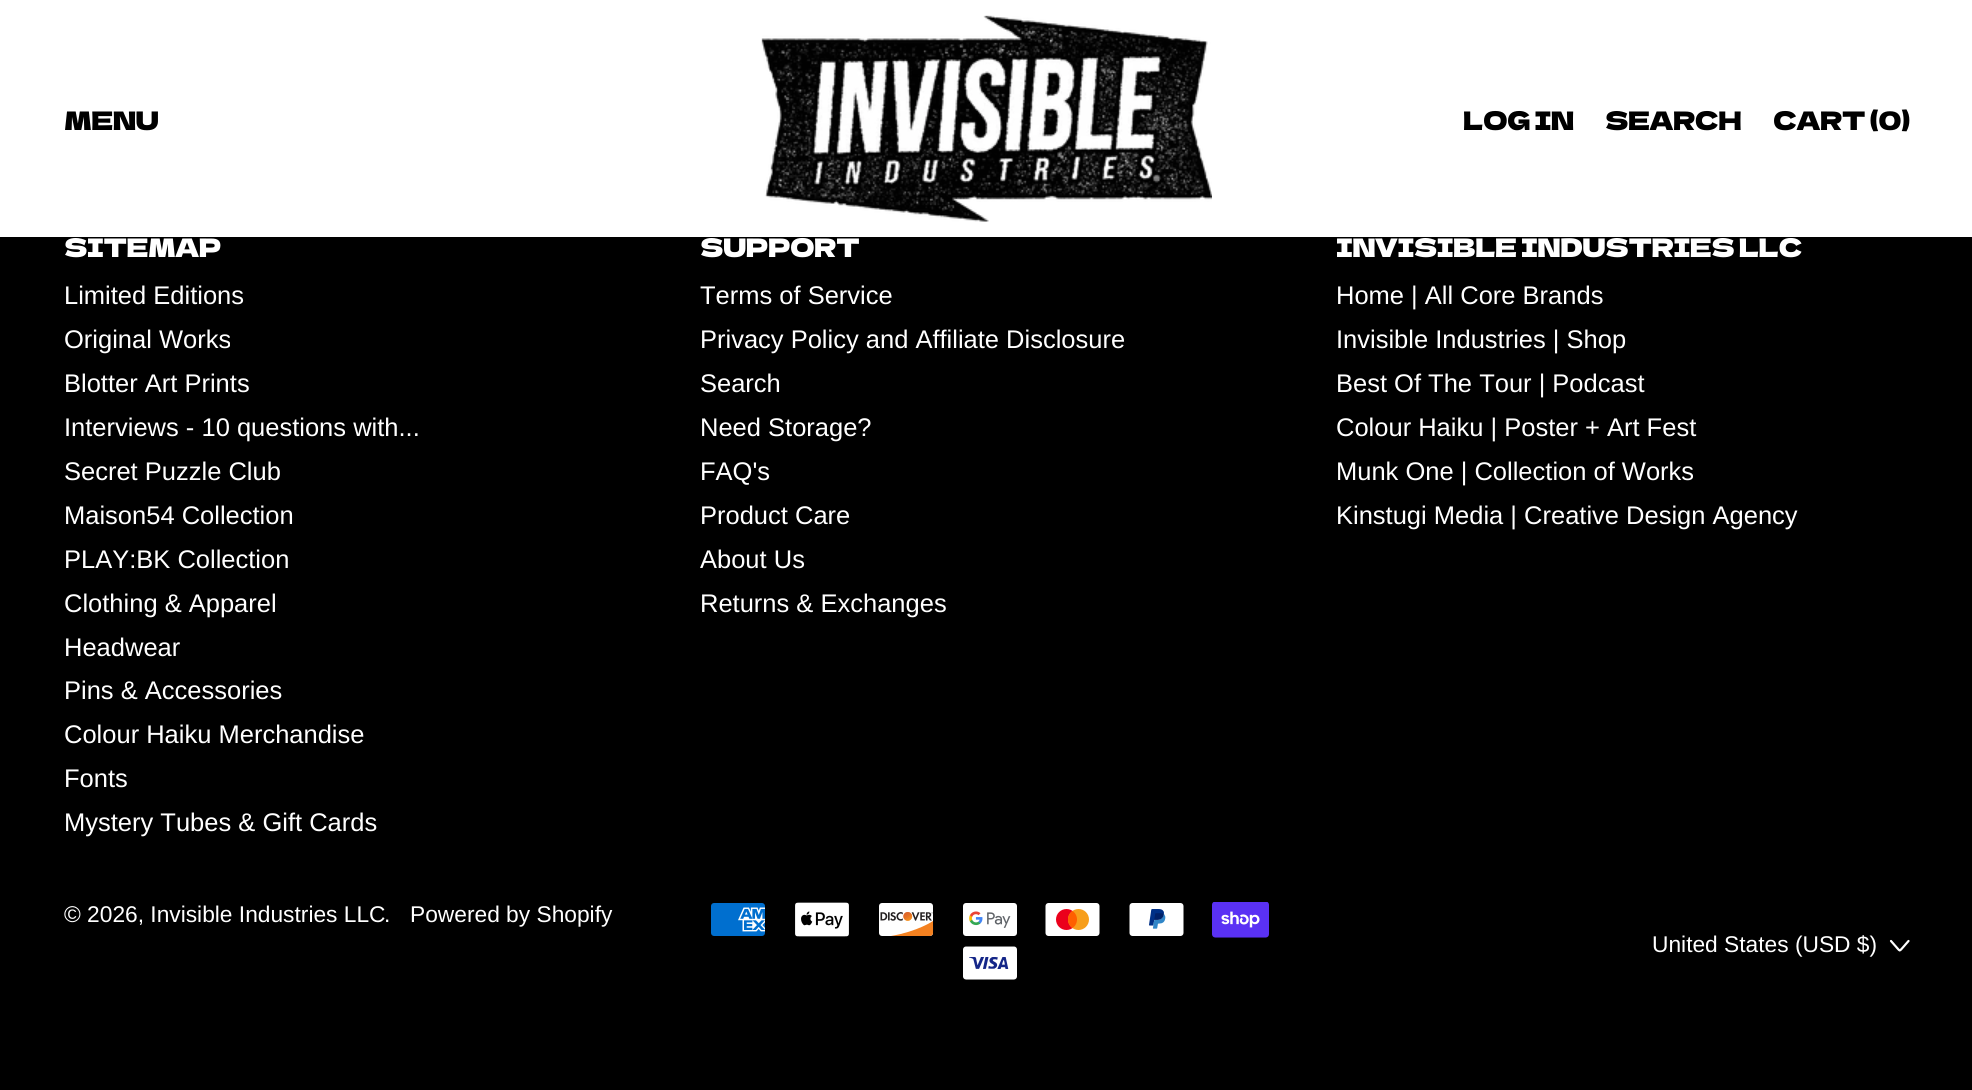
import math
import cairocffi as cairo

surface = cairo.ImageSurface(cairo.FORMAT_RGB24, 1972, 1090)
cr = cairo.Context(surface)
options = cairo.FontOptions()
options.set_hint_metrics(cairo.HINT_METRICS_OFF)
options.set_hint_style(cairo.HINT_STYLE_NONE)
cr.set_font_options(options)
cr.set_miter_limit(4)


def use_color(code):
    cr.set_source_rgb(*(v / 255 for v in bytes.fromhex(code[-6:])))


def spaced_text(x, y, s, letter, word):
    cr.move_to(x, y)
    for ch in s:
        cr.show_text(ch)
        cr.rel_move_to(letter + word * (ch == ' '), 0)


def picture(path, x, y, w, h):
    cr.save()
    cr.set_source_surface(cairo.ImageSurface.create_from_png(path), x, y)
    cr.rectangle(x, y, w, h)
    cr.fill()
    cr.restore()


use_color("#000000")
cr.paint()
use_color("#ffffff")
cr.rectangle(0, 0, 1972, 237)
cr.fill()
cr.select_font_face("Dela Gothic One")
cr.set_font_size(25.5)
use_color("#000000")
spaced_text(64, 130, "MENU", -0.6, 0)
picture("img1.png", 761, 15, 451, 207)
spaced_text(1463, 130, "LOG IN", -0.6, 0)
spaced_text(1605, 130, "SEARCH", -0.6, 0)
spaced_text(1773, 130, "CART (0)", -0.6, 0)
use_color("#ffffff")
spaced_text(64, 257, "SITEMAP", -0.6, 0)
cr.select_font_face("Liberation Sans")
cr.move_to(64, 304)
cr.show_text("Limited Editions")
cr.move_to(64, 348)
cr.show_text("Original Works")
cr.move_to(64, 392)
cr.show_text("Blotter Art Prints")
cr.move_to(64, 436)
cr.show_text("Interviews - 10 questions with...")
cr.move_to(64, 480)
cr.show_text("Secret Puzzle Club")
cr.move_to(64, 524)
cr.show_text("Maison54 Collection")
cr.move_to(64, 568)
cr.show_text("PLAY:BK Collection")
cr.move_to(64, 612)
cr.show_text("Clothing & Apparel")
cr.move_to(64, 656)
cr.show_text("Headwear")
cr.move_to(64, 699)
cr.show_text("Pins & Accessories")
cr.move_to(64, 743)
cr.show_text("Colour Haiku Merchandise")
cr.move_to(64, 787)
cr.show_text("Fonts")
cr.move_to(64, 831)
cr.show_text("Mystery Tubes & Gift Cards")
cr.select_font_face("Dela Gothic One")
spaced_text(700, 257, "SUPPORT", -0.6, 0)
cr.select_font_face("Liberation Sans")
cr.move_to(700, 304)
cr.show_text("Terms of Service")
cr.move_to(700, 348)
cr.show_text("Privacy Policy and Affiliate Disclosure")
cr.move_to(700, 392)
cr.show_text("Search")
cr.move_to(700, 436)
cr.show_text("Need Storage?")
cr.move_to(700, 480)
cr.show_text("FAQ's")
cr.move_to(700, 524)
cr.show_text("Product Care")
cr.move_to(700, 568)
cr.show_text("About Us")
cr.move_to(700, 612)
cr.show_text("Returns & Exchanges")
cr.select_font_face("Dela Gothic One")
spaced_text(1336, 257, "INVISIBLE INDUSTRIES LLC", -0.6, 0)
cr.select_font_face("Liberation Sans")
cr.move_to(1336, 304)
cr.show_text("Home | All Core Brands")
cr.move_to(1336, 348)
cr.show_text("Invisible Industries | Shop")
cr.move_to(1336, 392)
cr.show_text("Best Of The Tour | Podcast")
cr.move_to(1336, 436)
cr.show_text("Colour Haiku | Poster + Art Fest")
cr.move_to(1336, 480)
cr.show_text("Munk One | Collection of Works")
cr.move_to(1336, 524)
cr.show_text("Kinstugi Media | Creative Design Agency")
cr.set_font_size(22.75)
cr.move_to(64, 922)
cr.show_text("© 2026, Invisible Industries LLC")
cr.move_to(384, 922)
cr.show_text(".")
cr.move_to(410, 922)
cr.show_text("Powered by Shopify")
picture("img2.png", 711, 903, 54, 33)
picture("img3.png", 795, 902, 54, 35)
picture("img4.png", 879, 903, 55, 33)
picture("img5.png", 963, 903, 54, 33)
picture("img6.png", 1045, 903, 55, 33)
picture("img7.png", 1129, 903, 55, 33)
picture("img8.png", 1212, 902, 57, 36)
picture("img9.png", 963, 946, 54, 34)
cr.move_to(1652, 952)
cr.show_text("United States (USD $)")
cr.new_path()
cr.move_to(1891, 941)
cr.line_to(1898, 949)
cr.curve_to(1900, 951, 1899.5, 951, 1901.5, 949)
cr.line_to(1908.5, 941)
cr.set_line_width(2.2)
cr.set_line_cap(cairo.LINE_CAP_ROUND)
cr.set_line_join(cairo.LINE_JOIN_ROUND)
cr.stroke()
surface.write_to_png("result.png")
